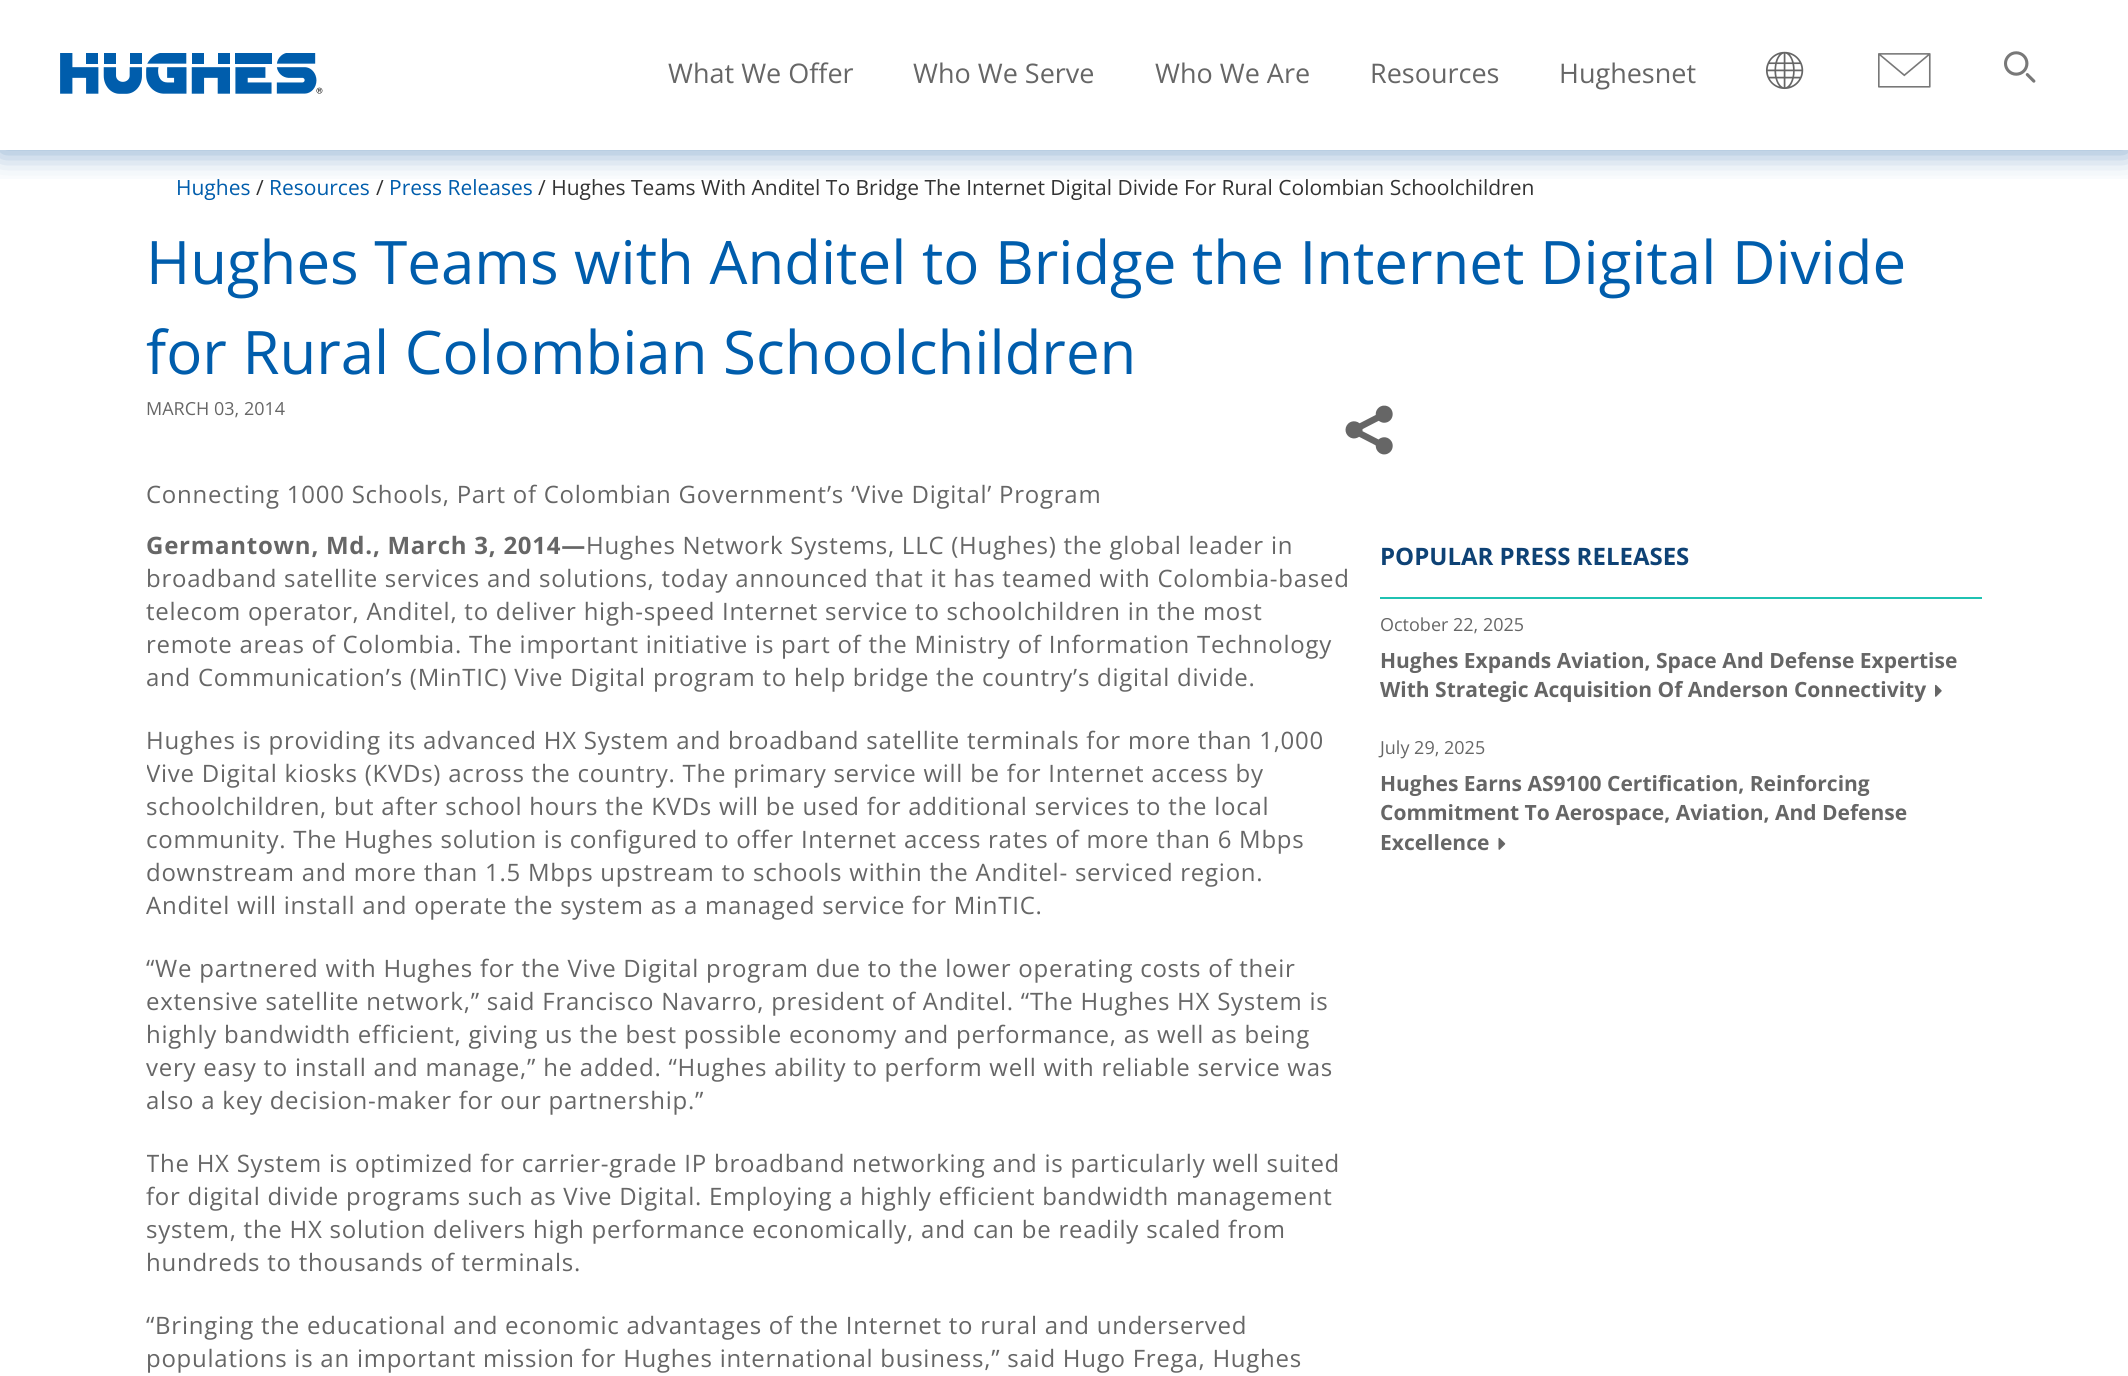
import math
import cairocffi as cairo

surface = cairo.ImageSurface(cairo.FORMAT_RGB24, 2128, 1376)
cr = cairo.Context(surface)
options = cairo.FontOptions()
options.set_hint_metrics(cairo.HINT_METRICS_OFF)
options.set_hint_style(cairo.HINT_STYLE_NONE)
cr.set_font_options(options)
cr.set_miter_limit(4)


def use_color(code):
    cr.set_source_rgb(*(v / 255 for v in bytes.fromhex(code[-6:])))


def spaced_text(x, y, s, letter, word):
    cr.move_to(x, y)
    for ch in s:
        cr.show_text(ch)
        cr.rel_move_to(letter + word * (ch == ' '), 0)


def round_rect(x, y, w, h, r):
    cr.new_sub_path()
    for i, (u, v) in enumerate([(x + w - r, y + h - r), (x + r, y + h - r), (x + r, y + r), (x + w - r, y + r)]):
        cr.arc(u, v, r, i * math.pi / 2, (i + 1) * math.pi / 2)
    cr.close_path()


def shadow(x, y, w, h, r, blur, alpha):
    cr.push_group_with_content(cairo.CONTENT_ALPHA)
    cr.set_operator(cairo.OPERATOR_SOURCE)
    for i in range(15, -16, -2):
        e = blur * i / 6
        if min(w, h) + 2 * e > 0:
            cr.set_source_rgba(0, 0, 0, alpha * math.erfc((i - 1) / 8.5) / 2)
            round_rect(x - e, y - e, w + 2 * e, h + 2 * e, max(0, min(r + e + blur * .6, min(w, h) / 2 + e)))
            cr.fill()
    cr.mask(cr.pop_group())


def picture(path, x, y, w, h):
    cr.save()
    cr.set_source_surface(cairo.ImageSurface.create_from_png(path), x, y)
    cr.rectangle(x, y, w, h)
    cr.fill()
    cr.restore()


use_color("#ffffff")
cr.paint()
cr.save()
cr.rectangle(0, 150, 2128, 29)
cr.clip()
use_color("#0a539b")
shadow(-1, 0, 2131, 153, 0, 15, 0.5)
cr.restore()
picture("img1.png", 60, 53, 263, 41)
cr.select_font_face("Open Sans")
cr.set_font_size(27)
use_color("#666666")
cr.move_to(668, 83)
cr.show_text("What We Offer")
cr.move_to(913, 83)
cr.show_text("Who We Serve")
cr.move_to(1155, 83)
cr.show_text("Who We Are")
cr.move_to(1370, 83)
cr.show_text("Resources")
cr.move_to(1559, 83)
cr.show_text("Hughesnet")
picture("img2.png", 1765, 51, 39, 39)
picture("img3.png", 1878, 53, 53, 35)
picture("img4.png", 2004, 51, 32, 32)
cr.set_font_size(21)
use_color("#005dac")
cr.move_to(176, 195)
cr.show_text("Hughes")
use_color("#333333")
cr.move_to(256, 195)
cr.show_text("/")
use_color("#005dac")
cr.move_to(269, 195)
cr.show_text("Resources")
use_color("#333333")
cr.move_to(376, 195)
cr.show_text("/")
use_color("#005dac")
cr.move_to(389, 195)
cr.show_text("Press Releases")
use_color("#333333")
cr.move_to(538, 195)
cr.show_text("/ Hughes Teams With Anditel To Bridge The Internet Digital Divide For Rural Colombian Schoolchildren")
cr.set_font_size(60)
use_color("#005dac")
cr.move_to(146, 284)
cr.show_text("Hughes Teams with Anditel to Bridge the Internet Digital Divide")
cr.move_to(146, 374)
cr.show_text("for Rural Colombian Schoolchildren")
cr.set_font_size(18)
use_color("#666666")
cr.move_to(146, 415)
cr.show_text("MARCH 03, 2014")
picture("img5.png", 1345, 405, 48, 50)
cr.set_font_size(24)
spaced_text(146, 503, "Connecting 1000 Schools, Part of Colombian Government’s ‘Vive Digital’ Program", 0.75, 0)
cr.select_font_face("Open Sans", cairo.FONT_SLANT_NORMAL, cairo.FONT_WEIGHT_BOLD)
spaced_text(146, 554, "Germantown, Md., March 3, 2014—", 0.75, 0)
cr.select_font_face("Open Sans")
spaced_text(586, 554, "Hughes Network Systems, LLC (Hughes) the global leader in", 0.75, 0)
spaced_text(146, 587, "broadband satellite services and solutions, today announced that it has teamed with Colombia-based", 0.75, 0)
spaced_text(146, 620, "telecom operator, Anditel, to deliver high-speed Internet service to schoolchildren in the most", 0.75, 0)
spaced_text(146, 653, "remote areas of Colombia. The important initiative is part of the Ministry of Information Technology", 0.75, 0)
spaced_text(146, 686, "and Communication’s (MinTIC) Vive Digital program to help bridge the country’s digital divide.", 0.75, 0)
spaced_text(146, 749, "Hughes is providing its advanced HX System and broadband satellite terminals for more than 1,000", 0.75, 0)
cr.save()
cr.rectangle(147, 218, 1836, 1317)
cr.clip()
spaced_text(146, 782, "Vive Digital kiosks (KVDs) across the country. The primary service will be for Internet access by", 0.75, 0)
cr.restore()
spaced_text(146, 815, "schoolchildren, but after school hours the KVDs will be used for additional services to the local", 0.75, 0)
spaced_text(146, 848, "community. The Hughes solution is configured to offer Internet access rates of more than 6 Mbps", 0.75, 0)
spaced_text(146, 881, "downstream and more than 1.5 Mbps upstream to schools within the Anditel- serviced region.", 0.75, 0)
spaced_text(146, 914, "Anditel will install and operate the system as a managed service for MinTIC.", 0.75, 0)
spaced_text(146, 977, "“We partnered with Hughes for the Vive Digital program due to the lower operating costs of their", 0.75, 0)
spaced_text(146, 1010, "extensive satellite network,” said Francisco Navarro, president of Anditel. “The Hughes HX System is", 0.75, 0)
spaced_text(146, 1043, "highly bandwidth efficient, giving us the best possible economy and performance, as well as being", 0.75, 0)
spaced_text(146, 1076, "very easy to install and manage,” he added. “Hughes ability to perform well with reliable service was", 0.75, 0)
spaced_text(146, 1109, "also a key decision-maker for our partnership.”", 0.75, 0)
cr.save()
cr.rectangle(147, 218, 1836, 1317)
cr.clip()
spaced_text(146, 1172, "The HX System is optimized for carrier-grade IP broadband networking and is particularly well suited", 0.75, 0)
cr.restore()
spaced_text(146, 1205, "for digital divide programs such as Vive Digital. Employing a highly efficient bandwidth management", 0.75, 0)
spaced_text(146, 1238, "system, the HX solution delivers high performance economically, and can be readily scaled from", 0.75, 0)
spaced_text(146, 1271, "hundreds to thousands of terminals.", 0.75, 0)
spaced_text(146, 1334, "“Bringing the educational and economic advantages of the Internet to rural and underserved", 0.75, 0)
spaced_text(146, 1367, "populations is an important mission for Hughes international business,” said Hugo Frega, Hughes", 0.75, 0)
use_color("#1fc2b2")
cr.rectangle(1380, 597, 602, 2)
cr.fill()
cr.select_font_face("Open Sans", cairo.FONT_SLANT_NORMAL, cairo.FONT_WEIGHT_BOLD)
use_color("#0e4275")
cr.move_to(1380, 565)
cr.show_text("POPULAR PRESS RELEASES")
cr.select_font_face("Open Sans")
cr.set_font_size(18)
use_color("#666666")
cr.move_to(1380, 631)
cr.show_text("October 22, 2025")
cr.select_font_face("Open Sans", cairo.FONT_SLANT_NORMAL, cairo.FONT_WEIGHT_BOLD)
cr.set_font_size(21)
cr.move_to(1380, 668)
cr.show_text("Hughes Expands Aviation, Space And Defense Expertise")
cr.move_to(1380, 697)
cr.show_text("With Strategic Acquisition Of Anderson Connectivity")
picture("img6.png", 1935, 684, 7, 13)
cr.select_font_face("Open Sans")
cr.set_font_size(18)
cr.move_to(1380, 754)
cr.show_text("July 29, 2025")
cr.select_font_face("Open Sans", cairo.FONT_SLANT_NORMAL, cairo.FONT_WEIGHT_BOLD)
cr.set_font_size(21)
cr.move_to(1380, 791)
cr.show_text("Hughes Earns AS9100 Certification, Reinforcing")
cr.move_to(1380, 820)
cr.show_text("Commitment To Aerospace, Aviation, And Defense")
cr.move_to(1380, 850)
cr.show_text("Excellence")
picture("img7.png", 1498, 837, 8, 13)
surface.write_to_png("result.png")
